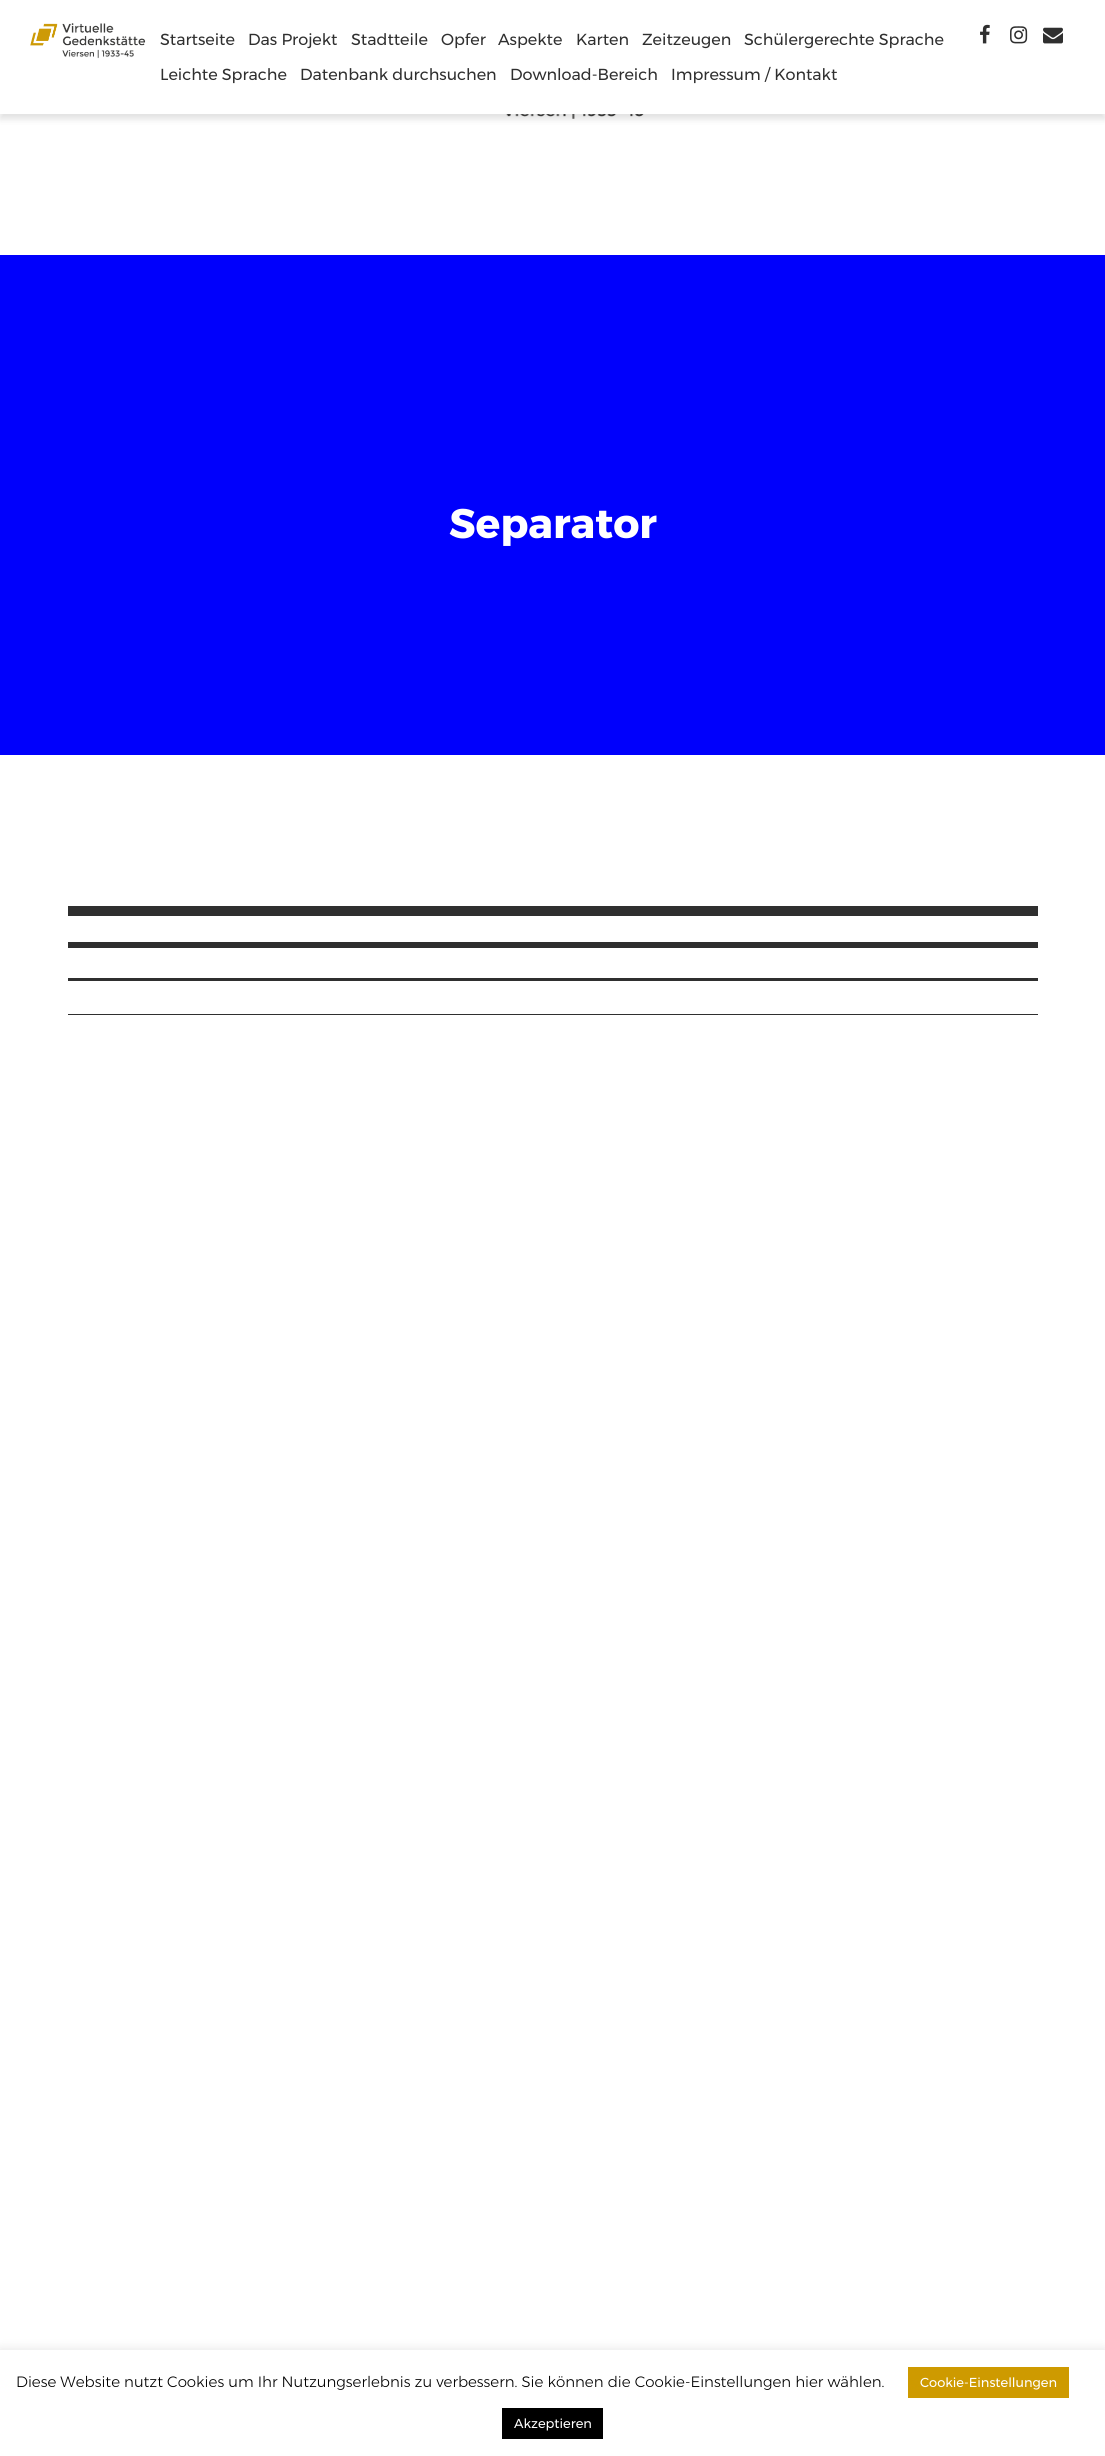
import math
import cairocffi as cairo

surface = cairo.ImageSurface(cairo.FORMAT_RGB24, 1105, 2456)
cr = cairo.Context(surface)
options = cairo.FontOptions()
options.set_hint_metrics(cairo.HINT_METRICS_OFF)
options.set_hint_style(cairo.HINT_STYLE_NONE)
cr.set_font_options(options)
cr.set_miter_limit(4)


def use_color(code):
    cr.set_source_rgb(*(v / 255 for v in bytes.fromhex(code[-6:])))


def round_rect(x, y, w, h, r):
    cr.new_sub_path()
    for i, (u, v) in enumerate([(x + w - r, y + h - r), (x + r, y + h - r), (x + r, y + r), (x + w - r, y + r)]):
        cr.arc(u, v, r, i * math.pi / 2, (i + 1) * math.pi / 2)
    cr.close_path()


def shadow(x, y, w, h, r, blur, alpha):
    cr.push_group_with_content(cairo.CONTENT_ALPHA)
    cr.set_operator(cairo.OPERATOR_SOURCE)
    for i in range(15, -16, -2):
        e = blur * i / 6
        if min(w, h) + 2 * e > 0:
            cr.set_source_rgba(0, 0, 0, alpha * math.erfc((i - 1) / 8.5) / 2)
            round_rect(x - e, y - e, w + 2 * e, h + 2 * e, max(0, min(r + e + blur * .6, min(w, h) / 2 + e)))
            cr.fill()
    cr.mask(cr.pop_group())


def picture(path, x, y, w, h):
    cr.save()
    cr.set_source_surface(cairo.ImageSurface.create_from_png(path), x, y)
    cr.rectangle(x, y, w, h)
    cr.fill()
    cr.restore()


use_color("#ffffff")
cr.paint()
picture("img5.png", 506, 114, 138, 5)
use_color("#323232")
shadow(0, 5, 1105, 114, 0, 3.5, 0.15)
use_color("#ffffff")
cr.rectangle(0, 0, 1105, 114)
cr.fill()
picture("img1.png", 30, 23, 116, 36)
cr.select_font_face("Montserrat")
cr.set_font_size(16)
use_color("#2f2f2f")
cr.move_to(160, 45)
cr.show_text("Startseite")
cr.move_to(248, 45)
cr.show_text("Das Projekt")
cr.move_to(351, 45)
cr.show_text("Stadtteile")
cr.move_to(441, 45)
cr.show_text("Opfer")
cr.move_to(498, 45)
cr.show_text("Aspekte")
cr.move_to(576, 45)
cr.show_text("Karten")
cr.move_to(642, 45)
cr.show_text("Zeitzeugen")
cr.move_to(744, 45)
cr.show_text("Schülergerechte Sprache")
cr.move_to(160, 80)
cr.show_text("Leichte Sprache")
cr.move_to(300, 80)
cr.show_text("Datenbank durchsuchen")
cr.move_to(510, 80)
cr.show_text("Download-Bereich")
cr.move_to(671, 80)
cr.show_text("Impressum / Kontakt")
picture("img2.png", 980, 24, 10, 20)
picture("img3.png", 1010, 26, 18, 18)
picture("img4.png", 1043, 27, 20, 17)
use_color("#0000fc")
cr.rectangle(0, 255, 1105, 500)
cr.fill()
cr.select_font_face("Montserrat", cairo.FONT_SLANT_NORMAL, cairo.FONT_WEIGHT_BOLD)
cr.set_font_size(41)
use_color("#ffffff")
cr.move_to(449, 538)
cr.show_text("Separator")
use_color("#2f2f2f")
cr.rectangle(68, 906, 970, 10)
cr.fill()
cr.rectangle(68, 942, 970, 6)
cr.fill()
cr.rectangle(68, 978, 970, 3)
cr.fill()
cr.rectangle(68, 1014, 970, 1)
cr.fill()
use_color("#acabab")
shadow(0, 2349, 1105, 106, 0, 5, 0.3)
use_color("#ffffff")
cr.rectangle(0, 2350, 1105, 106)
cr.fill()
cr.select_font_face("Montserrat Light")
cr.set_font_size(15)
use_color("#000000")
cr.move_to(16, 2387)
cr.show_text("Diese Website nutzt Cookies um Ihr Nutzungserlebnis zu verbessern. Sie können die Cookie-Einstellungen hier wählen.")
use_color("#ce9a00")
cr.rectangle(908, 2367, 161, 31)
cr.fill()
cr.select_font_face("Montserrat")
cr.set_font_size(13)
use_color("#ffffff")
cr.move_to(920, 2387)
cr.show_text("Cookie-Einstellungen")
use_color("#000000")
cr.rectangle(502, 2408, 101, 31)
cr.fill()
use_color("#ffffff")
cr.move_to(514, 2428)
cr.show_text("Akzeptieren")
surface.write_to_png("result.png")
